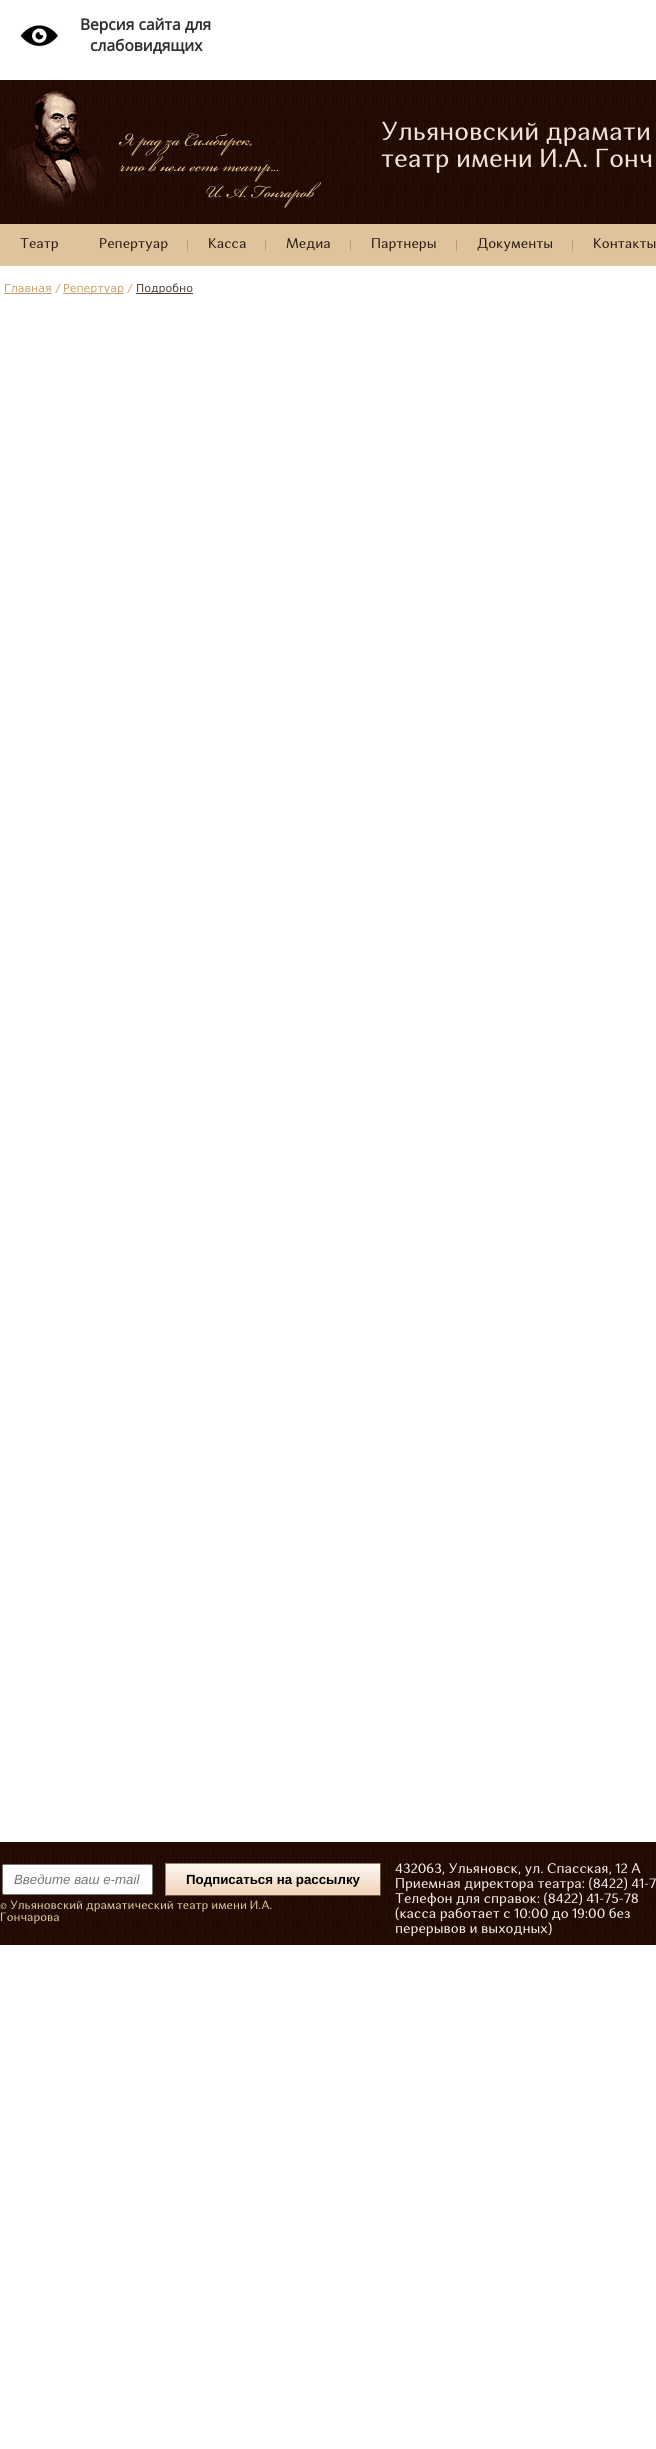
import math
import cairocffi as cairo

surface = cairo.ImageSurface(cairo.FORMAT_RGB24, 656, 2449)
cr = cairo.Context(surface)
options = cairo.FontOptions()
options.set_hint_metrics(cairo.HINT_METRICS_OFF)
options.set_hint_style(cairo.HINT_STYLE_NONE)
cr.set_font_options(options)
cr.set_miter_limit(4)


def use_color(code):
    cr.set_source_rgb(*(v / 255 for v in bytes.fromhex(code[-6:])))


def round_rect(x, y, w, h, r):
    cr.new_sub_path()
    for i, (u, v) in enumerate([(x + w - r, y + h - r), (x + r, y + h - r), (x + r, y + r), (x + w - r, y + r)]):
        cr.arc(u, v, r, i * math.pi / 2, (i + 1) * math.pi / 2)
    cr.close_path()


def picture(path, x, y, w, h):
    cr.save()
    cr.set_source_surface(cairo.ImageSurface.create_from_png(path), x, y)
    cr.rectangle(x, y, w, h)
    cr.fill()
    cr.restore()


use_color("#ffffff")
cr.paint()
picture("img1.png", 20, 25, 38, 22)
cr.select_font_face("Noto Sans", cairo.FONT_SLANT_NORMAL, cairo.FONT_WEIGHT_BOLD)
cr.set_font_size(15.5)
use_color("#2e2e2e")
cr.move_to(80, 30)
cr.show_text("Версия сайта для")
cr.move_to(90, 51)
cr.show_text("слабовидящих")
picture("img2.png", 0, 80, 656, 144)
picture("img3.png", 6, 91, 315, 117)
cr.select_font_face("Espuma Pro")
cr.set_font_size(26)
use_color("#efe4d4")
cr.move_to(381, 140)
cr.show_text("Ульяновский драмати")
cr.move_to(381, 167)
cr.show_text("театр имени И.А. Гонч")
use_color("#dfc49b")
cr.rectangle(0, 224, 656, 42)
cr.fill()
cr.set_font_size(14)
use_color("#2d1d13")
cr.move_to(20, 248)
cr.show_text("Театр")
use_color("#bc9e7c")
cr.rectangle(187, 240, 1, 11)
cr.fill()
use_color("#2d1d13")
cr.move_to(99, 248)
cr.show_text("Репертуар")
use_color("#bc9e7c")
cr.rectangle(265, 240, 1, 11)
cr.fill()
use_color("#2d1d13")
cr.move_to(208, 248)
cr.show_text("Касса")
use_color("#bc9e7c")
cr.rectangle(350, 240, 1, 11)
cr.fill()
use_color("#2d1d13")
cr.move_to(286, 248)
cr.show_text("Медиа")
use_color("#bc9e7c")
cr.rectangle(456, 240, 1, 11)
cr.fill()
use_color("#2d1d13")
cr.move_to(371, 248)
cr.show_text("Партнеры")
use_color("#bc9e7c")
cr.rectangle(572, 240, 1, 11)
cr.fill()
use_color("#2d1d13")
cr.move_to(477, 248)
cr.show_text("Документы")
cr.move_to(593, 248)
cr.show_text("Контакты")
cr.select_font_face("DejaVu Sans")
cr.set_font_size(11)
use_color("#c7a16c")
cr.move_to(4, 292)
cr.show_text("Главная")
cr.rectangle(4, 293, 48, 1)
cr.fill()
cr.select_font_face("DejaVu Sans", cairo.FONT_SLANT_ITALIC)
cr.move_to(56, 292)
cr.show_text("/")
cr.rectangle(63, 293, 61, 1)
cr.fill()
cr.select_font_face("DejaVu Sans")
cr.move_to(63, 292)
cr.show_text("Репертуар")
cr.select_font_face("DejaVu Sans", cairo.FONT_SLANT_ITALIC)
cr.move_to(128, 292)
cr.show_text("/")
use_color("#4f423a")
cr.rectangle(136, 293, 57, 1)
cr.fill()
cr.select_font_face("DejaVu Sans")
cr.move_to(136, 292)
cr.show_text("Подробно")
picture("img4.png", 0, 1842, 656, 103)
use_color("#ffffff")
round_rect(2.5, 1864.5, 150, 30, 1.5)
cr.fill_preserve()
use_color("#767676")
cr.set_line_width(1)
cr.stroke()
cr.select_font_face("Liberation Sans", cairo.FONT_SLANT_ITALIC)
cr.set_font_size(13.3)
use_color("#757575")
cr.move_to(14, 1884)
cr.show_text("Введите ваш e-mail")
gradient = cairo.LinearGradient(273, 1864, 273, 1895)
gradient.add_color_stop_rgba(0, 0.984, 0.969, 0.949, 1)
gradient.add_color_stop_rgba(1, 0.953, 0.827, 0.722, 1)
cr.set_source(gradient)
cr.rectangle(166, 1864, 214, 31)
cr.fill()
use_color("#9a8063")
cr.rectangle(165, 1863, 216, 1)
cr.fill()
use_color("#675542")
cr.rectangle(380, 1863, 1, 33)
cr.fill()
cr.rectangle(165, 1895, 216, 1)
cr.fill()
use_color("#9a8063")
cr.rectangle(165, 1863, 1, 33)
cr.fill()
cr.select_font_face("Liberation Sans", cairo.FONT_SLANT_NORMAL, cairo.FONT_WEIGHT_BOLD)
use_color("#000000")
cr.move_to(186, 1884)
cr.show_text("Подписаться на рассылку")
cr.select_font_face("Espuma Pro")
cr.set_font_size(14)
use_color("#f5efe4")
cr.move_to(395, 1873)
cr.show_text("432063, Ульяновск, ул. Спасская, 12 А")
cr.move_to(395, 1888)
cr.show_text("Приемная директора театра: (8422) 41-7")
cr.move_to(395, 1903)
cr.show_text("Телефон для справок: (8422) 41-75-78")
cr.move_to(395, 1918)
cr.show_text("(касса работает с 10:00 до 19:00 без")
cr.move_to(395, 1933)
cr.show_text("перерывов и выходных)")
cr.set_font_size(12)
use_color("#dfc49b")
cr.move_to(0, 1909)
cr.show_text("© Ульяновский драматический театр имени И.А.")
cr.move_to(0, 1921)
cr.show_text("Гончарова")
surface.write_to_png("result.png")
